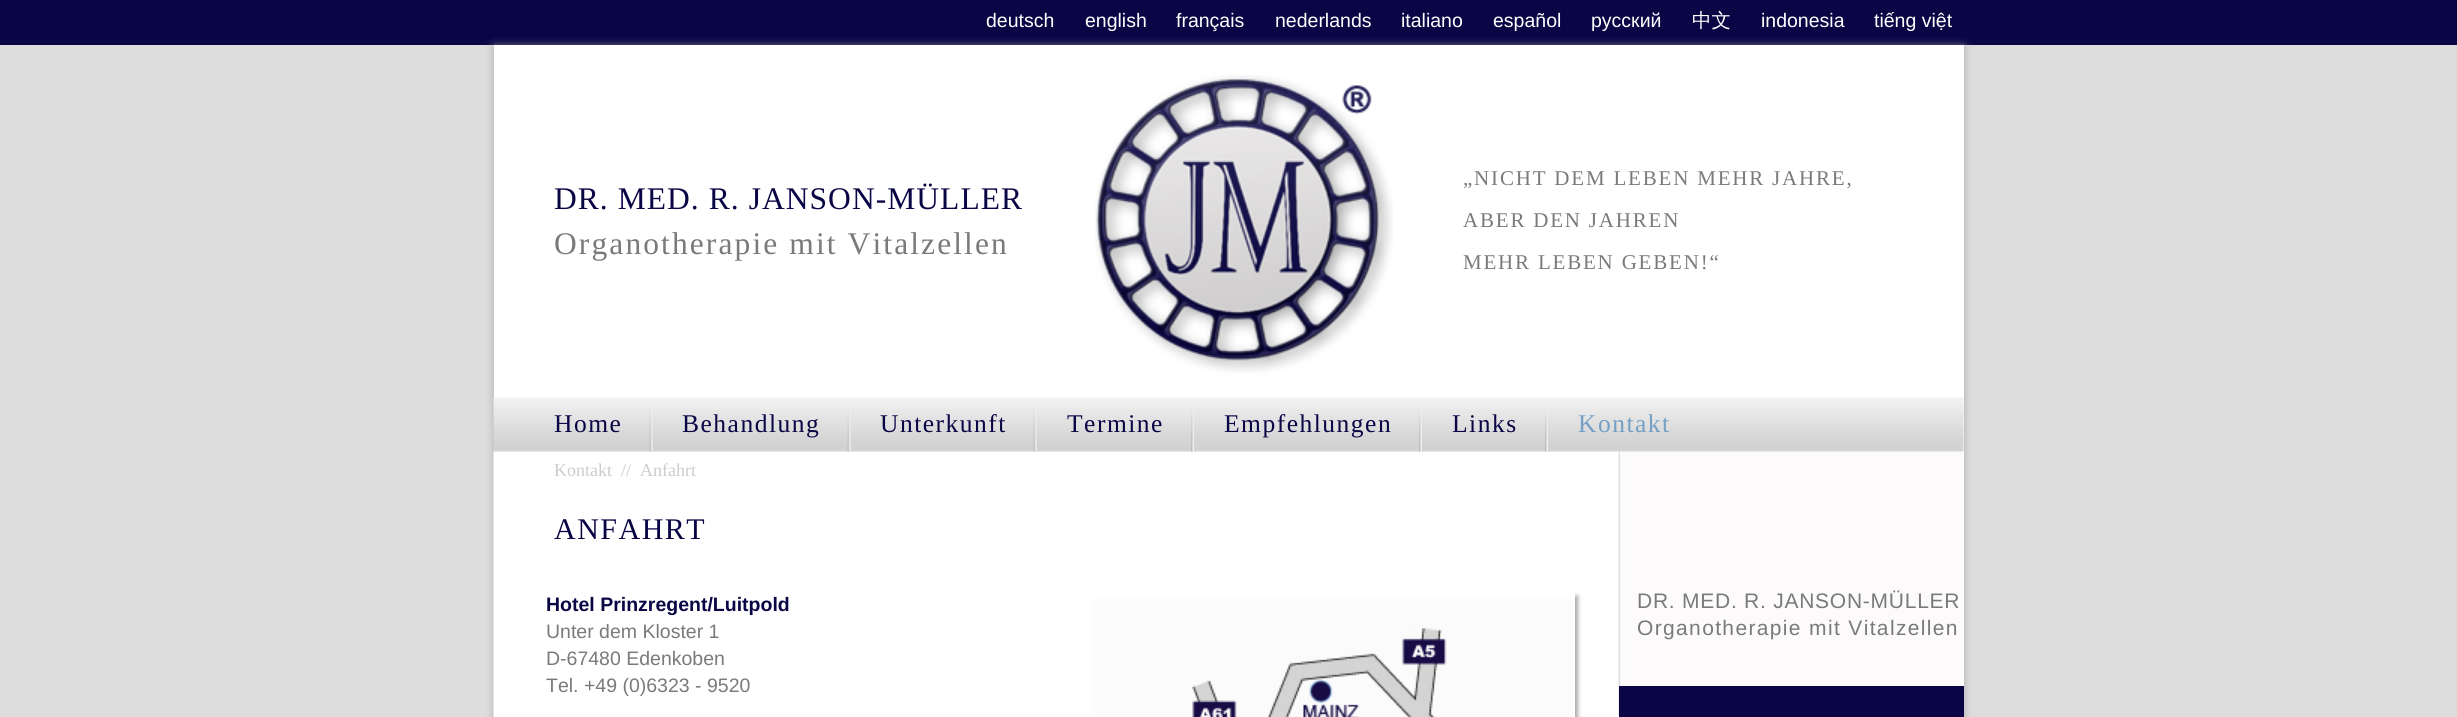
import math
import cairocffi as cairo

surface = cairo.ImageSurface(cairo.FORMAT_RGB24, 2457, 717)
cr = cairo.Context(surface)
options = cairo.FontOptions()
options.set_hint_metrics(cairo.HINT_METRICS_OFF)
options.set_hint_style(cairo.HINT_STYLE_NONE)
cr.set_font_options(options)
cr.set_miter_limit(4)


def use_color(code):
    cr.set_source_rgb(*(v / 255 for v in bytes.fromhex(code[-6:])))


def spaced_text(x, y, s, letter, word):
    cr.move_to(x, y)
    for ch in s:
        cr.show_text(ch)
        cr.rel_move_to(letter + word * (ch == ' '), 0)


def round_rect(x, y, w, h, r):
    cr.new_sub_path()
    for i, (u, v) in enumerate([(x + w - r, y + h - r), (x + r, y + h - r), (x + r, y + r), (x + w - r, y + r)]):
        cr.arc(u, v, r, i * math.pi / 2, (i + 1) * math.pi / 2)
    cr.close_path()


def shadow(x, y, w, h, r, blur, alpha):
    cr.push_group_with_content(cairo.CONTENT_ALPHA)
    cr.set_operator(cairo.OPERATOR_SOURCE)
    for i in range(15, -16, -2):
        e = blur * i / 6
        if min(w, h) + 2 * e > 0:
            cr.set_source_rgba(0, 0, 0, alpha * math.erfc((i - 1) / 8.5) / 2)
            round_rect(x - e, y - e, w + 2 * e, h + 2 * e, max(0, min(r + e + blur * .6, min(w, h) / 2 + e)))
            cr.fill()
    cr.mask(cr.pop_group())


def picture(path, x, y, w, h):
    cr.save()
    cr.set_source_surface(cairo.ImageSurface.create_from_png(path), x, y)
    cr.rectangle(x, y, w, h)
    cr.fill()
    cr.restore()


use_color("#dddddd")
cr.paint()
use_color("#0a0545")
cr.rectangle(0, 0, 2457, 45)
cr.fill()
cr.select_font_face("Liberation Sans")
cr.set_font_size(19.5)
use_color("#ffffff")
cr.move_to(986, 27)
cr.show_text("deutsch")
cr.move_to(1085, 27)
cr.show_text("english")
cr.move_to(1176, 27)
cr.show_text("français")
cr.move_to(1275, 27)
cr.show_text("nederlands")
cr.move_to(1401, 27)
cr.show_text("italiano")
cr.move_to(1493, 27)
cr.show_text("español")
cr.move_to(1591, 27)
cr.show_text("русский")
cr.select_font_face("WenQuanYi Zen Hei Medium")
cr.move_to(1692, 27)
cr.show_text("中文")
cr.select_font_face("Liberation Sans")
cr.move_to(1761, 27)
cr.show_text("indonesia")
cr.move_to(1874, 27)
cr.show_text("tiếng việt")
use_color("#aaaaaa")
shadow(494, 47, 1470, 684, 0, 4.5, 1)
use_color("#ffffff")
cr.rectangle(494, 45, 1470, 641)
cr.fill()
cr.select_font_face("Liberation Serif")
cr.set_font_size(31.5)
use_color("#0a0545")
spaced_text(554, 209, "DR. MED. R. JANSON-MÜLLER", 1.05, 0)
use_color("#7a7a7a")
spaced_text(554, 254, "Organotherapie mit Vitalzellen", 2.1, 0)
picture("img1.png", 1095, 75, 298, 298)
cr.set_font_size(21)
spaced_text(1463, 185, "„NICHT DEM LEBEN MEHR JAHRE,", 1.8, 0)
spaced_text(1463, 227, "ABER DEN JAHREN", 1.8, 0)
spaced_text(1463, 269, "MEHR LEBEN GEBEN!“", 1.8, 0)
picture("img6.png", 493, 451, 1470, 266)
picture("img2.png", 493, 397, 1471, 55)
picture("img3.png", 649, 397, 4, 55)
cr.set_font_size(25.5)
use_color("#0a0545")
spaced_text(554, 432, "Home", 1.5, 0)
picture("img3.png", 847, 397, 4, 55)
spaced_text(682, 432, "Behandlung", 1.5, 0)
picture("img3.png", 1033, 397, 4, 55)
spaced_text(880, 432, "Unterkunft", 1.5, 0)
picture("img4.png", 1191, 397, 3, 55)
spaced_text(1067, 432, "Termine", 1.5, 0)
picture("img5.png", 1419, 397, 3, 55)
spaced_text(1224, 432, "Empfehlungen", 1.5, 0)
picture("img5.png", 1545, 397, 3, 55)
spaced_text(1452, 432, "Links", 1.5, 0)
use_color("#74a0c6")
spaced_text(1578, 432, "Kontakt", 1.5, 0)
cr.set_font_size(18)
use_color("#cccccc")
cr.move_to(554, 476)
cr.show_text("Kontakt")
cr.move_to(621, 476)
cr.show_text("//")
cr.move_to(640, 476)
cr.show_text("Anfahrt")
cr.set_font_size(30)
use_color("#0a0545")
spaced_text(554, 539, "ANFAHRT", 1.5, 0)
cr.select_font_face("Liberation Sans", cairo.FONT_SLANT_NORMAL, cairo.FONT_WEIGHT_BOLD)
cr.set_font_size(19.5)
cr.move_to(546, 611)
cr.show_text("Hotel Prinzregent/Luitpold")
cr.select_font_face("Liberation Sans")
use_color("#7a7a7a")
cr.move_to(546, 638)
cr.show_text("Unter dem Kloster 1")
cr.move_to(546, 665)
cr.show_text("D-67480 Edenkoben")
cr.move_to(546, 692)
cr.show_text("Tel. +49 (0)6323 - 9520")
cr.save()
cr.set_fill_rule(cairo.FILL_RULE_EVEN_ODD)
cr.new_path()
cr.move_to(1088, 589)
cr.line_to(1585, 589)
cr.line_to(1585, 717)
cr.line_to(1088, 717)
cr.close_path()
cr.move_to(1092, 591)
cr.line_to(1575, 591)
cr.line_to(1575, 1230)
cr.line_to(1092, 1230)
cr.close_path()
cr.clip()
use_color("#aaaaaa")
shadow(1095, 596, 483, 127, 0, 2, 1)
cr.restore()
picture("img7.png", 1094, 599, 479, 118)
cr.set_font_size(21)
spaced_text(1637, 608, "DR. MED. R. JANSON-MÜLLER", 0.75, 0)
spaced_text(1637, 635, "Organotherapie mit Vitalzellen", 1.35, 0)
use_color("#0a0545")
cr.rectangle(1619, 686, 345, 31)
cr.fill()
surface.write_to_png("result.png")
